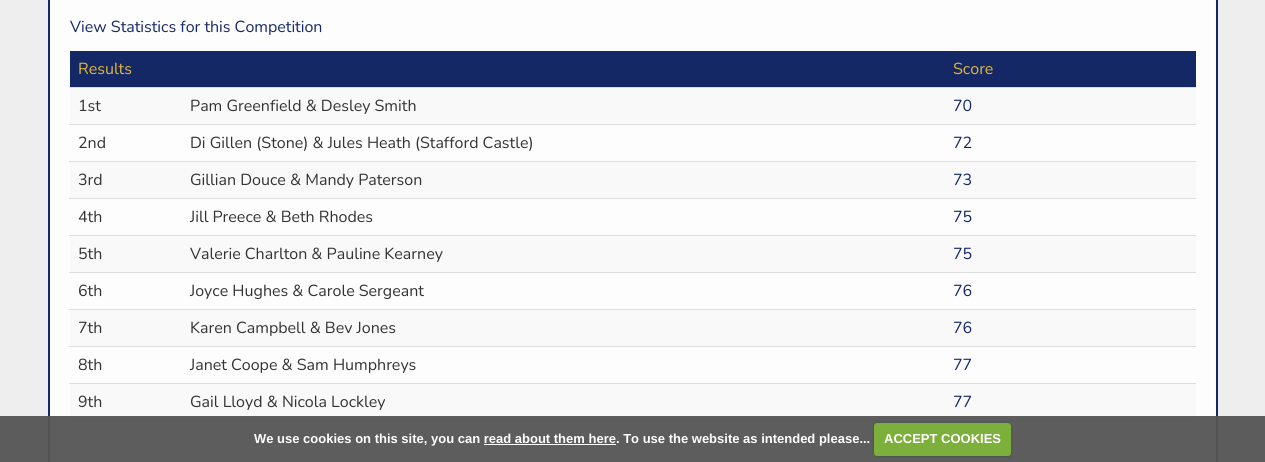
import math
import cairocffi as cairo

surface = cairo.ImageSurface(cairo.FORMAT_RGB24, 1265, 462)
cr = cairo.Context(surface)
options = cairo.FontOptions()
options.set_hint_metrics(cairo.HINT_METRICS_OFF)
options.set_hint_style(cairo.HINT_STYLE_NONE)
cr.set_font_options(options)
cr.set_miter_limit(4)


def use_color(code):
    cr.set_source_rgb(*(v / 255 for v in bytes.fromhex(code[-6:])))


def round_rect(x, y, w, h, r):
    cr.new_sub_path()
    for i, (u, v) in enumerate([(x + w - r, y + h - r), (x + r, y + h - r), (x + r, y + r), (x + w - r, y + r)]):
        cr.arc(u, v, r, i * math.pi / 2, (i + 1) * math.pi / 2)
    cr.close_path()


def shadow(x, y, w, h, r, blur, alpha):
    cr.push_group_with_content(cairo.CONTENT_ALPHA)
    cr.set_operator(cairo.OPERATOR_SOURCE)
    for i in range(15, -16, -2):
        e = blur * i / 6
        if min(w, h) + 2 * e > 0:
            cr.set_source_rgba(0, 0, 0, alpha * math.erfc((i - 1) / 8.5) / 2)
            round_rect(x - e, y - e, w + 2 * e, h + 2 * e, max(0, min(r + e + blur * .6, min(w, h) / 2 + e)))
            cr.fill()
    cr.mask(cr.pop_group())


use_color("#eeeeee")
cr.paint()
use_color("#fdfdfd")
cr.rectangle(49, -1, 1168, 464)
cr.fill_preserve()
use_color("#152866")
cr.stroke()
cr.select_font_face("Nunito")
cr.set_font_size(16)
cr.move_to(70, 32)
cr.show_text("View Statistics for this Competition")
cr.rectangle(70, 51, 1126, 36)
cr.fill()
use_color("#e1b838")
cr.move_to(78, 74)
cr.show_text("Results")
cr.move_to(953, 74)
cr.show_text("Score")
use_color("#dddddd")
cr.rectangle(69, 87, 1127, 1)
cr.fill()
use_color("#f9f9f9")
cr.rectangle(70, 88, 1126, 36)
cr.fill()
use_color("#333333")
cr.move_to(78, 111)
cr.show_text("1st")
cr.move_to(190, 111)
cr.show_text("Pam Greenfield & Desley Smith")
use_color("#152866")
cr.move_to(953, 111)
cr.show_text("70")
use_color("#dddddd")
cr.rectangle(69, 124, 1127, 1)
cr.fill()
use_color("#333333")
cr.move_to(78, 148)
cr.show_text("2nd")
cr.move_to(190, 148)
cr.show_text("Di Gillen (Stone) & Jules Heath (Stafford Castle)")
use_color("#152866")
cr.move_to(953, 148)
cr.show_text("72")
use_color("#dddddd")
cr.rectangle(69, 161, 1127, 1)
cr.fill()
use_color("#f9f9f9")
cr.rectangle(70, 162, 1126, 36)
cr.fill()
use_color("#333333")
cr.move_to(78, 185)
cr.show_text("3rd")
cr.move_to(190, 185)
cr.show_text("Gillian Douce & Mandy Paterson")
use_color("#152866")
cr.move_to(953, 185)
cr.show_text("73")
use_color("#dddddd")
cr.rectangle(69, 198, 1127, 1)
cr.fill()
use_color("#333333")
cr.move_to(78, 222)
cr.show_text("4th")
cr.move_to(190, 222)
cr.show_text("Jill Preece & Beth Rhodes")
use_color("#152866")
cr.move_to(953, 222)
cr.show_text("75")
use_color("#dddddd")
cr.rectangle(69, 235, 1127, 1)
cr.fill()
use_color("#f9f9f9")
cr.rectangle(70, 236, 1126, 36)
cr.fill()
use_color("#333333")
cr.move_to(78, 259)
cr.show_text("5th")
cr.move_to(190, 259)
cr.show_text("Valerie Charlton & Pauline Kearney")
use_color("#152866")
cr.move_to(953, 259)
cr.show_text("75")
use_color("#dddddd")
cr.rectangle(69, 272, 1127, 1)
cr.fill()
use_color("#333333")
cr.move_to(78, 296)
cr.show_text("6th")
cr.move_to(190, 296)
cr.show_text("Joyce Hughes & Carole Sergeant")
use_color("#152866")
cr.move_to(953, 296)
cr.show_text("76")
use_color("#dddddd")
cr.rectangle(69, 309, 1127, 1)
cr.fill()
use_color("#f9f9f9")
cr.rectangle(70, 310, 1126, 36)
cr.fill()
use_color("#333333")
cr.move_to(78, 333)
cr.show_text("7th")
cr.move_to(190, 333)
cr.show_text("Karen Campbell & Bev Jones")
use_color("#152866")
cr.move_to(953, 333)
cr.show_text("76")
use_color("#dddddd")
cr.rectangle(69, 346, 1127, 1)
cr.fill()
use_color("#333333")
cr.move_to(78, 370)
cr.show_text("8th")
cr.move_to(190, 370)
cr.show_text("Janet Coope & Sam Humphreys")
use_color("#152866")
cr.move_to(953, 370)
cr.show_text("77")
use_color("#dddddd")
cr.rectangle(69, 383, 1127, 1)
cr.fill()
use_color("#f9f9f9")
cr.rectangle(70, 384, 1126, 36)
cr.fill()
use_color("#333333")
cr.move_to(78, 407)
cr.show_text("9th")
cr.move_to(190, 407)
cr.show_text("Gail Lloyd & Nicola Lockley")
use_color("#152866")
cr.move_to(953, 407)
cr.show_text("77")
use_color("#dddddd")
cr.rectangle(69, 420, 1127, 1)
cr.fill()
cr.rectangle(69, 457, 1127, 1)
cr.fill()
use_color("#f9f9f9")
cr.rectangle(70, 458, 1126, 4)
cr.fill()
cr.set_source_rgba(0.337, 0.337, 0.337, 0.95)
cr.rectangle(0, 416, 1265, 46)
cr.fill()
cr.select_font_face("Liberation Sans", cairo.FONT_SLANT_NORMAL, cairo.FONT_WEIGHT_BOLD)
cr.set_font_size(13)
use_color("#ffffff")
cr.move_to(254, 443)
cr.show_text("We use cookies on this site, you can read about them here. To use the website as intended please...")
use_color("#000000")
shadow(874, 423, 137, 33, 3, 1, 0.25)
use_color("#7daf3b")
round_rect(874, 423, 137, 33, 3)
cr.fill()
use_color("#ffffff")
cr.move_to(884, 443)
cr.show_text("ACCEPT COOKIES")
cr.rectangle(484, 444, 132, 1)
cr.fill()
surface.write_to_png("result.png")
